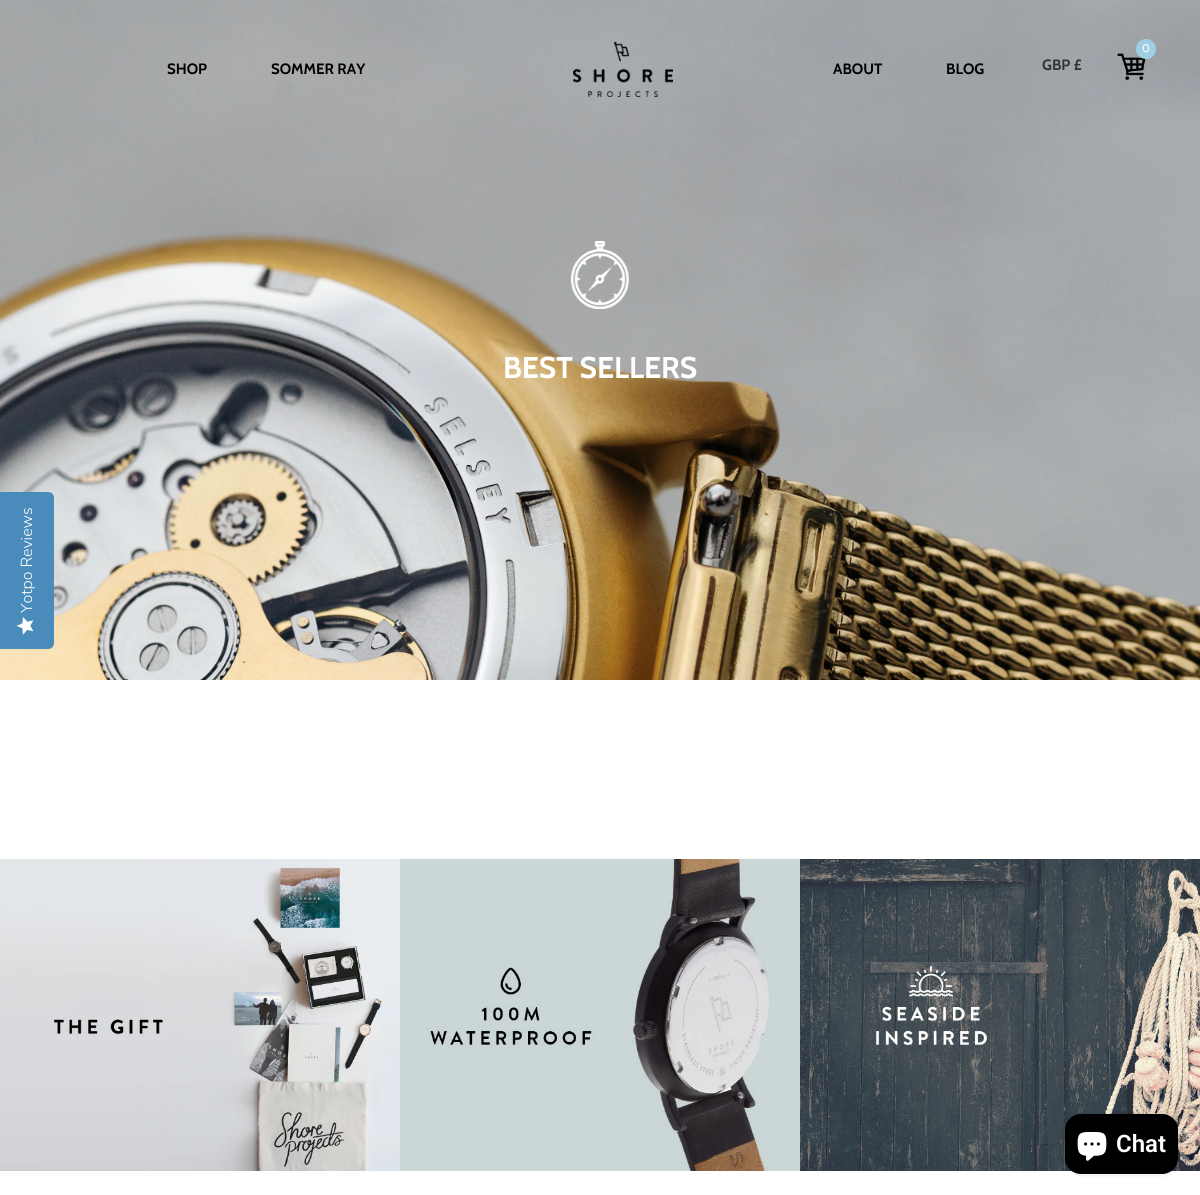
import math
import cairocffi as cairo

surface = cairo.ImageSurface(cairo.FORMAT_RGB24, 1200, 1195)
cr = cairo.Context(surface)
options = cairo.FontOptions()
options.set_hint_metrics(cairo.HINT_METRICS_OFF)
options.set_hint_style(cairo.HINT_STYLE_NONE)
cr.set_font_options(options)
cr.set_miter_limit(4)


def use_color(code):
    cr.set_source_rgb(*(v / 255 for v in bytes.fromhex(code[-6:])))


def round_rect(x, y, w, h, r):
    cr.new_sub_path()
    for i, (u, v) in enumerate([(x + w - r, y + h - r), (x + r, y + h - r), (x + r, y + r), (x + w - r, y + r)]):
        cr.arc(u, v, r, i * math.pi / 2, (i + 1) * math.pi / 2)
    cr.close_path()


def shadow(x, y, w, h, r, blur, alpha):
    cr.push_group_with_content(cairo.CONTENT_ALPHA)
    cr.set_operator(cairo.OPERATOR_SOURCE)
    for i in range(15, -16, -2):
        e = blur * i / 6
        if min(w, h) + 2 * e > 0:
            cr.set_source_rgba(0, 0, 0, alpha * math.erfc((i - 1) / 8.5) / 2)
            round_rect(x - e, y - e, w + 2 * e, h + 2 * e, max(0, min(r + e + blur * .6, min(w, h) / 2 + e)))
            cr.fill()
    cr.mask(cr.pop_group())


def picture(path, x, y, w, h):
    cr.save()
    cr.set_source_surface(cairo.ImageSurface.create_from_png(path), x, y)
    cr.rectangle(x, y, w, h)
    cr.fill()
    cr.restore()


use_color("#ffffff")
cr.paint()
picture("img3.png", 0, 0, 1200, 680)
cr.select_font_face("Cabin", cairo.FONT_SLANT_NORMAL, cairo.FONT_WEIGHT_BOLD)
cr.set_font_size(15)
use_color("#000000")
cr.move_to(167, 74)
cr.show_text("SHOP")
cr.move_to(271, 74)
cr.show_text("SOMMER RAY")
picture("img1.png", 573, 42, 100, 55)
cr.move_to(833, 74)
cr.show_text("ABOUT")
cr.move_to(946, 74)
cr.show_text("BLOG")
picture("img2.png", 1117, 53, 29, 27)
use_color("#9fcfe3")
cr.arc(1146, 49, 10, 0, 2 * math.pi)
cr.fill()
cr.select_font_face("Cabin")
cr.set_font_size(11)
use_color("#ffffff")
cr.move_to(1142, 52)
cr.show_text("0")
cr.select_font_face("Cabin", cairo.FONT_SLANT_NORMAL, cairo.FONT_WEIGHT_BOLD)
cr.set_font_size(15)
use_color("#333333")
cr.move_to(1042, 70)
cr.show_text("GBP £")
picture("img4.png", 570, 241, 59, 68)
cr.set_font_size(30)
use_color("#ffffff")
cr.move_to(503, 378)
cr.show_text("BEST SELLERS")
picture("img5.png", 0, 859, 400, 312)
picture("img6.png", 400, 859, 400, 312)
picture("img7.png", 800, 859, 400, 312)
use_color("#498cbc")
cr.new_path()
cr.move_to(0, 649)
cr.line_to(0, 492)
cr.line_to(48, 492)
cr.curve_to(51, 492, 54, 494, 54, 498)
cr.line_to(54, 643)
cr.curve_to(54, 647, 51, 649, 48, 649)
cr.close_path()
cr.fill()
cr.select_font_face("Nunito Sans Light")
cr.set_font_size(16)
use_color("#ffffff")
cr.save()
cr.translate(32, 613)
cr.rotate(-90 * math.pi / 180)
cr.move_to(0, 0)
cr.show_text("Yotpo Reviews")
cr.restore()
picture("img8.png", 16, 617, 18, 18)
use_color("#000000")
shadow(1065, 1114, 113, 60, 16, 2.5, 0.15)
use_color("#000000")
round_rect(1065, 1114, 113, 60, 16)
cr.fill()
picture("img9.png", 1077, 1132, 30, 29)
cr.select_font_face("Roboto SemiBold")
cr.set_font_size(24)
use_color("#ffffff")
cr.move_to(1116, 1152)
cr.show_text("Chat")
surface.write_to_png("result.png")
